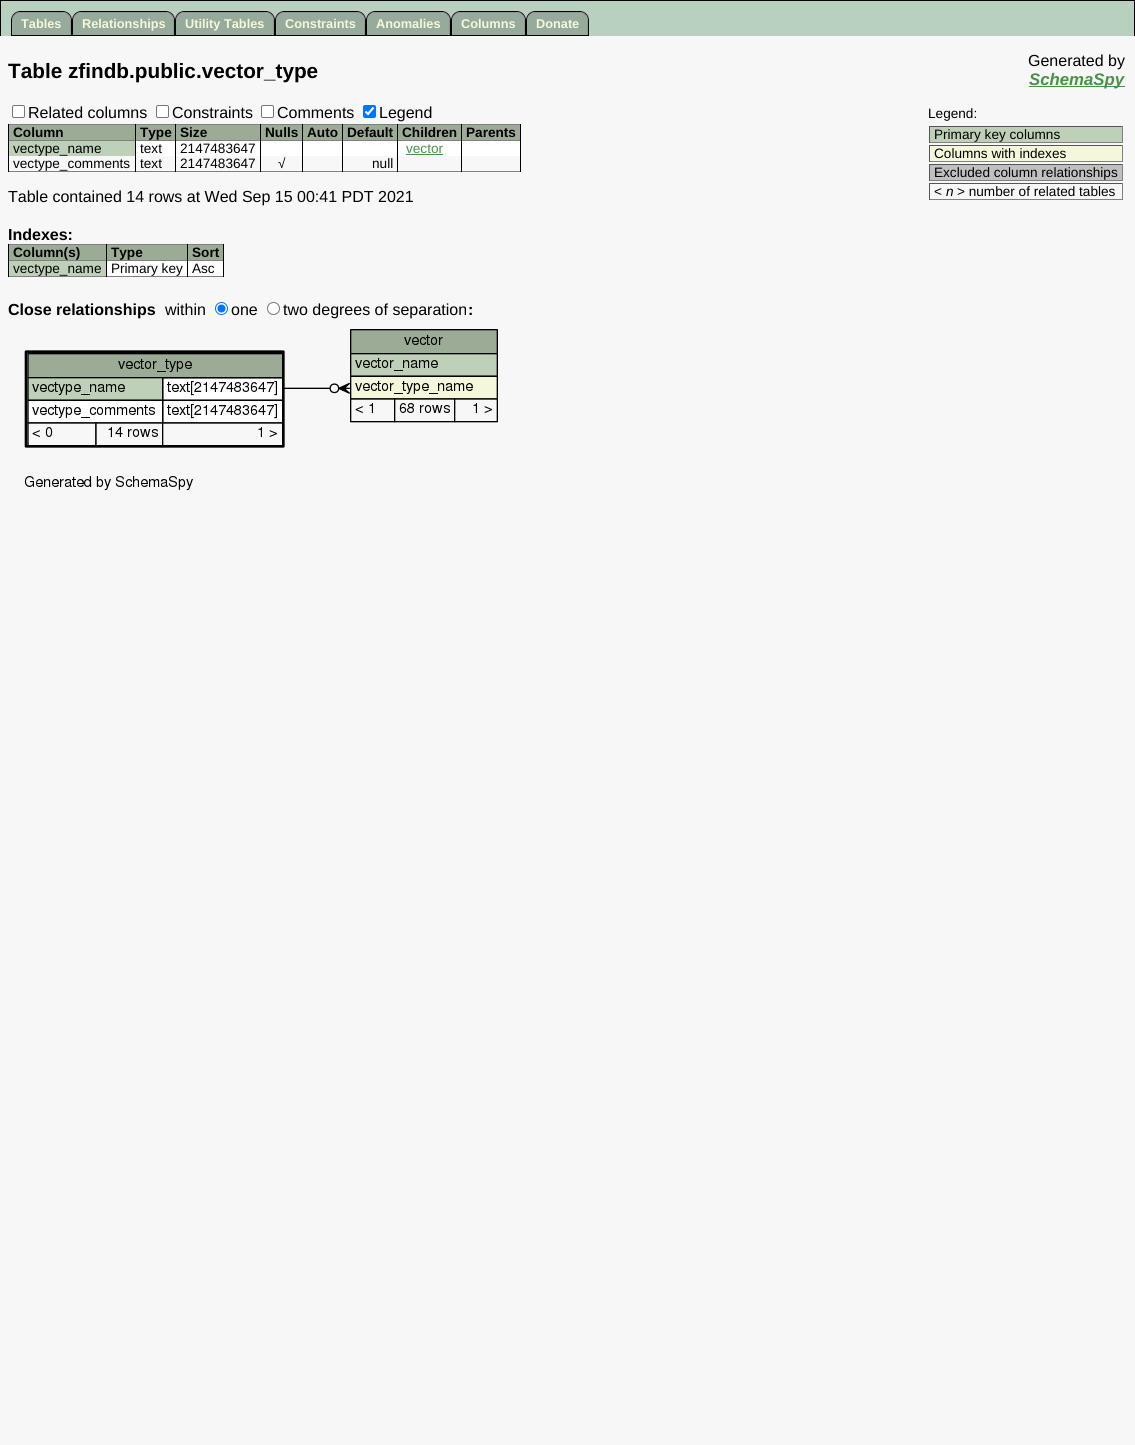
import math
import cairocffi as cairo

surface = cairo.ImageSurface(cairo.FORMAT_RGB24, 1135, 1445)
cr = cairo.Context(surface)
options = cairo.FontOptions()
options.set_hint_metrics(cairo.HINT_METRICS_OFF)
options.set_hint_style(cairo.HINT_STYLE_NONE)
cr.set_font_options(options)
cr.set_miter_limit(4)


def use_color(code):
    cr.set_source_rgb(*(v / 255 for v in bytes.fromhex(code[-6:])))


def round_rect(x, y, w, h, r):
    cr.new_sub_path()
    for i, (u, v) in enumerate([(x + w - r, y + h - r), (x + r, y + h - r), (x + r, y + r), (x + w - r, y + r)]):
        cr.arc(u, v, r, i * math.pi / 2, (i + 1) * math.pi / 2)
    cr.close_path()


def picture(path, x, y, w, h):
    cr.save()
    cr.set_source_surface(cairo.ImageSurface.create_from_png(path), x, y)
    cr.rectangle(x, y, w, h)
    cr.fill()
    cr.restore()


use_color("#f7f7f7")
cr.paint()
use_color("#000000")
cr.rectangle(0, 0, 1135, 1)
cr.fill()
cr.rectangle(1134, 0, 1, 36)
cr.fill()
cr.rectangle(0, 0, 1, 36)
cr.fill()
use_color("#b8d1be")
cr.rectangle(1, 1, 1133, 35)
cr.fill()
picture("img1.png", 11, 11, 9, 24)
use_color("#000000")
cr.rectangle(11, 35, 578, 1)
cr.fill()
picture("img2.png", 20, 11, 52, 24)
cr.select_font_face("Liberation Sans", cairo.FONT_SLANT_NORMAL, cairo.FONT_WEIGHT_BOLD)
cr.set_font_size(12.75)
use_color("#f4f7da")
cr.move_to(21, 28)
cr.show_text("Tables")
picture("img1.png", 72, 11, 9, 24)
picture("img3.png", 81, 11, 94, 24)
cr.move_to(82, 28)
cr.show_text("Relationships")
picture("img1.png", 175, 11, 9, 24)
picture("img4.png", 184, 11, 91, 24)
cr.move_to(185, 28)
cr.show_text("Utility Tables")
picture("img1.png", 275, 11, 9, 24)
picture("img5.png", 284, 11, 82, 24)
cr.move_to(285, 28)
cr.show_text("Constraints")
picture("img1.png", 366, 11, 9, 24)
picture("img6.png", 375, 11, 76, 24)
cr.move_to(376, 28)
cr.show_text("Anomalies")
picture("img1.png", 451, 11, 9, 24)
picture("img7.png", 460, 11, 66, 24)
cr.move_to(461, 28)
cr.show_text("Columns")
picture("img1.png", 526, 11, 9, 24)
picture("img8.png", 535, 11, 54, 24)
cr.move_to(536, 28)
cr.show_text("Donate")
cr.set_font_size(20.75)
use_color("#000000")
cr.move_to(8, 78)
cr.show_text("Table zfindb.public.vector_type")
cr.select_font_face("Liberation Sans")
cr.set_font_size(16)
cr.move_to(1028, 66)
cr.show_text("Generated by")
use_color("#489148")
cr.rectangle(1029, 86, 96, 1)
cr.fill()
cr.select_font_face("Liberation Sans", cairo.FONT_SLANT_ITALIC, cairo.FONT_WEIGHT_BOLD)
cr.set_font_size(16.75)
cr.move_to(1029, 85)
cr.show_text("SchemaSpy")
use_color("#ffffff")
round_rect(12.5, 105.5, 12, 12, 1.5)
cr.fill_preserve()
use_color("#767676")
cr.set_line_width(1)
cr.stroke()
cr.select_font_face("Liberation Sans")
cr.set_font_size(16)
use_color("#000000")
cr.move_to(28, 118)
cr.show_text("Related columns")
use_color("#ffffff")
round_rect(156.5, 105.5, 12, 12, 1.5)
cr.fill_preserve()
use_color("#767676")
cr.stroke()
use_color("#000000")
cr.move_to(172, 118)
cr.show_text("Constraints")
use_color("#ffffff")
round_rect(261.5, 105.5, 12, 12, 1.5)
cr.fill_preserve()
use_color("#767676")
cr.stroke()
use_color("#000000")
cr.move_to(277, 118)
cr.show_text("Comments")
use_color("#0075ff")
round_rect(363, 105, 13, 13, 2)
cr.fill()
cr.new_path()
cr.move_to(365.5, 111.5)
cr.line_to(368, 114)
cr.line_to(373.5, 107.5)
use_color("#ffffff")
cr.set_line_width(2.1)
cr.stroke()
use_color("#000000")
cr.move_to(379, 118)
cr.show_text("Legend")
cr.set_font_size(13.6)
cr.move_to(928, 118)
cr.show_text("Legend:")
use_color("#bed1b8")
cr.rectangle(930, 127, 192, 15)
cr.fill()
use_color("#555555")
cr.rectangle(929, 126, 194, 1)
cr.fill()
use_color("#808080")
cr.rectangle(1122, 126, 1, 17)
cr.fill()
cr.rectangle(929, 142, 194, 1)
cr.fill()
use_color("#555555")
cr.rectangle(929, 126, 1, 17)
cr.fill()
use_color("#000000")
cr.move_to(934, 139)
cr.show_text("Primary key columns")
use_color("#f4f7da")
cr.rectangle(930, 146, 192, 15)
cr.fill()
use_color("#555555")
cr.rectangle(929, 145, 194, 1)
cr.fill()
use_color("#808080")
cr.rectangle(1122, 145, 1, 17)
cr.fill()
cr.rectangle(929, 161, 194, 1)
cr.fill()
use_color("#555555")
cr.rectangle(929, 145, 1, 17)
cr.fill()
use_color("#000000")
cr.move_to(934, 158)
cr.show_text("Columns with indexes")
use_color("#c0c0c0")
cr.rectangle(930, 165, 192, 15)
cr.fill()
use_color("#555555")
cr.rectangle(929, 164, 194, 1)
cr.fill()
use_color("#808080")
cr.rectangle(1122, 164, 1, 17)
cr.fill()
cr.rectangle(929, 180, 194, 1)
cr.fill()
use_color("#555555")
cr.rectangle(929, 164, 1, 17)
cr.fill()
use_color("#000000")
cr.move_to(934, 177)
cr.show_text("Excluded column relationships")
use_color("#555555")
cr.rectangle(929, 183, 194, 1)
cr.fill()
use_color("#808080")
cr.rectangle(1122, 183, 1, 17)
cr.fill()
cr.rectangle(929, 199, 194, 1)
cr.fill()
use_color("#555555")
cr.rectangle(929, 183, 1, 17)
cr.fill()
use_color("#000000")
cr.move_to(934, 196)
cr.show_text("<")
cr.select_font_face("Liberation Sans", cairo.FONT_SLANT_ITALIC)
cr.move_to(946, 196)
cr.show_text("n")
cr.select_font_face("Liberation Sans")
cr.move_to(957, 196)
cr.show_text("> number of related tables")
use_color("#808080")
cr.rectangle(8, 124, 513, 1)
cr.fill()
cr.rectangle(8, 140, 513, 1)
cr.fill()
cr.rectangle(8, 171, 513, 1)
cr.fill()
use_color("#000000")
cr.rectangle(8, 124, 1, 48)
cr.fill()
cr.rectangle(135, 124, 1, 48)
cr.fill()
cr.rectangle(175, 124, 1, 48)
cr.fill()
cr.rectangle(260, 124, 1, 48)
cr.fill()
cr.rectangle(302, 124, 1, 48)
cr.fill()
cr.rectangle(342, 124, 1, 48)
cr.fill()
cr.rectangle(397, 124, 1, 48)
cr.fill()
cr.rectangle(520, 124, 1, 48)
cr.fill()
cr.rectangle(461, 124, 1, 48)
cr.fill()
use_color("#9bab96")
cr.rectangle(9, 125, 126, 15)
cr.fill()
cr.select_font_face("Liberation Sans", cairo.FONT_SLANT_NORMAL, cairo.FONT_WEIGHT_BOLD)
use_color("#000000")
cr.move_to(13, 137)
cr.show_text("Column")
use_color("#9bab96")
cr.rectangle(136, 125, 39, 15)
cr.fill()
use_color("#000000")
cr.move_to(140, 137)
cr.show_text("Type")
use_color("#9bab96")
cr.rectangle(176, 125, 84, 15)
cr.fill()
use_color("#000000")
cr.move_to(180, 137)
cr.show_text("Size")
use_color("#9bab96")
cr.rectangle(261, 125, 41, 15)
cr.fill()
use_color("#000000")
cr.move_to(265, 137)
cr.show_text("Nulls")
use_color("#9bab96")
cr.rectangle(303, 125, 39, 15)
cr.fill()
use_color("#000000")
cr.move_to(307, 137)
cr.show_text("Auto")
use_color("#9bab96")
cr.rectangle(343, 125, 54, 15)
cr.fill()
use_color("#000000")
cr.move_to(347, 137)
cr.show_text("Default")
use_color("#9bab96")
cr.rectangle(398, 125, 63, 15)
cr.fill()
use_color("#000000")
cr.move_to(402, 137)
cr.show_text("Children")
use_color("#9bab96")
cr.rectangle(462, 125, 58, 15)
cr.fill()
use_color("#000000")
cr.move_to(466, 137)
cr.show_text("Parents")
use_color("#bed1b8")
cr.rectangle(9, 141, 126, 15)
cr.fill()
cr.select_font_face("Liberation Sans")
use_color("#000000")
cr.move_to(13, 153)
cr.show_text("vectype_name")
use_color("#ffffff")
cr.rectangle(136, 141, 39, 15)
cr.fill()
use_color("#000000")
cr.move_to(140, 153)
cr.show_text("text")
use_color("#ffffff")
cr.rectangle(176, 141, 84, 15)
cr.fill()
use_color("#000000")
cr.move_to(180, 153)
cr.show_text("2147483647")
use_color("#ffffff")
cr.rectangle(261, 141, 41, 15)
cr.fill()
cr.rectangle(303, 141, 39, 15)
cr.fill()
cr.rectangle(343, 141, 54, 15)
cr.fill()
cr.rectangle(398, 141, 63, 15)
cr.fill()
use_color("#489148")
cr.move_to(406, 153)
cr.show_text("vector")
cr.rectangle(406, 154, 37, 1)
cr.fill()
use_color("#ffffff")
cr.rectangle(462, 141, 58, 15)
cr.fill()
use_color("#000000")
cr.move_to(13, 168)
cr.show_text("vectype_comments")
cr.move_to(140, 168)
cr.show_text("text")
cr.move_to(180, 168)
cr.show_text("2147483647")
cr.move_to(278, 168)
cr.show_text("√")
cr.move_to(372, 168)
cr.show_text("null")
cr.set_font_size(16)
cr.move_to(8, 202)
cr.show_text("Table contained 14 rows at Wed Sep 15 00:41 PDT 2021")
cr.select_font_face("Liberation Sans", cairo.FONT_SLANT_NORMAL, cairo.FONT_WEIGHT_BOLD)
cr.move_to(8, 240)
cr.show_text("Indexes:")
use_color("#808080")
cr.rectangle(8, 244, 216, 1)
cr.fill()
cr.rectangle(8, 260, 216, 1)
cr.fill()
cr.rectangle(8, 276, 216, 1)
cr.fill()
use_color("#000000")
cr.rectangle(8, 244, 1, 33)
cr.fill()
cr.rectangle(106, 244, 1, 33)
cr.fill()
cr.rectangle(223, 244, 1, 33)
cr.fill()
cr.rectangle(187, 244, 1, 33)
cr.fill()
use_color("#9bab96")
cr.rectangle(9, 245, 97, 15)
cr.fill()
cr.set_font_size(13.6)
use_color("#000000")
cr.move_to(13, 257)
cr.show_text("Column(s)")
use_color("#9bab96")
cr.rectangle(107, 245, 80, 15)
cr.fill()
use_color("#000000")
cr.move_to(111, 257)
cr.show_text("Type")
use_color("#9bab96")
cr.rectangle(188, 245, 35, 15)
cr.fill()
use_color("#000000")
cr.move_to(192, 257)
cr.show_text("Sort")
use_color("#bed1b8")
cr.rectangle(9, 261, 97, 15)
cr.fill()
cr.select_font_face("Liberation Sans")
use_color("#000000")
cr.move_to(13, 273)
cr.show_text("vectype_name")
use_color("#ffffff")
cr.rectangle(107, 261, 80, 15)
cr.fill()
use_color("#000000")
cr.move_to(111, 273)
cr.show_text("Primary key")
use_color("#ffffff")
cr.rectangle(188, 261, 35, 15)
cr.fill()
use_color("#000000")
cr.move_to(192, 273)
cr.show_text("Asc")
cr.select_font_face("Liberation Sans", cairo.FONT_SLANT_NORMAL, cairo.FONT_WEIGHT_BOLD)
cr.set_font_size(16)
cr.move_to(8, 315)
cr.show_text("Close relationships")
cr.select_font_face("Liberation Sans")
cr.move_to(165, 315)
cr.show_text("within")
use_color("#ffffff")
cr.new_path()
cr.arc(221.5, 308.5, 6, 0, 2 * math.pi)
cr.fill_preserve()
use_color("#0075ff")
cr.set_line_width(1)
cr.stroke()
cr.arc(221.5, 308.5, 4, 0, 2 * math.pi)
cr.fill()
use_color("#000000")
cr.move_to(231, 315)
cr.show_text("one")
use_color("#ffffff")
cr.new_path()
cr.arc(273.5, 308.5, 6, 0, 2 * math.pi)
cr.fill_preserve()
use_color("#767676")
cr.stroke()
use_color("#000000")
cr.move_to(283, 315)
cr.show_text("two degrees of separation")
cr.select_font_face("Liberation Sans", cairo.FONT_SLANT_NORMAL, cairo.FONT_WEIGHT_BOLD)
cr.move_to(468, 315)
cr.show_text(":")
picture("img9.png", 24, 329, 474, 162)
surface.write_to_png("result.png")
